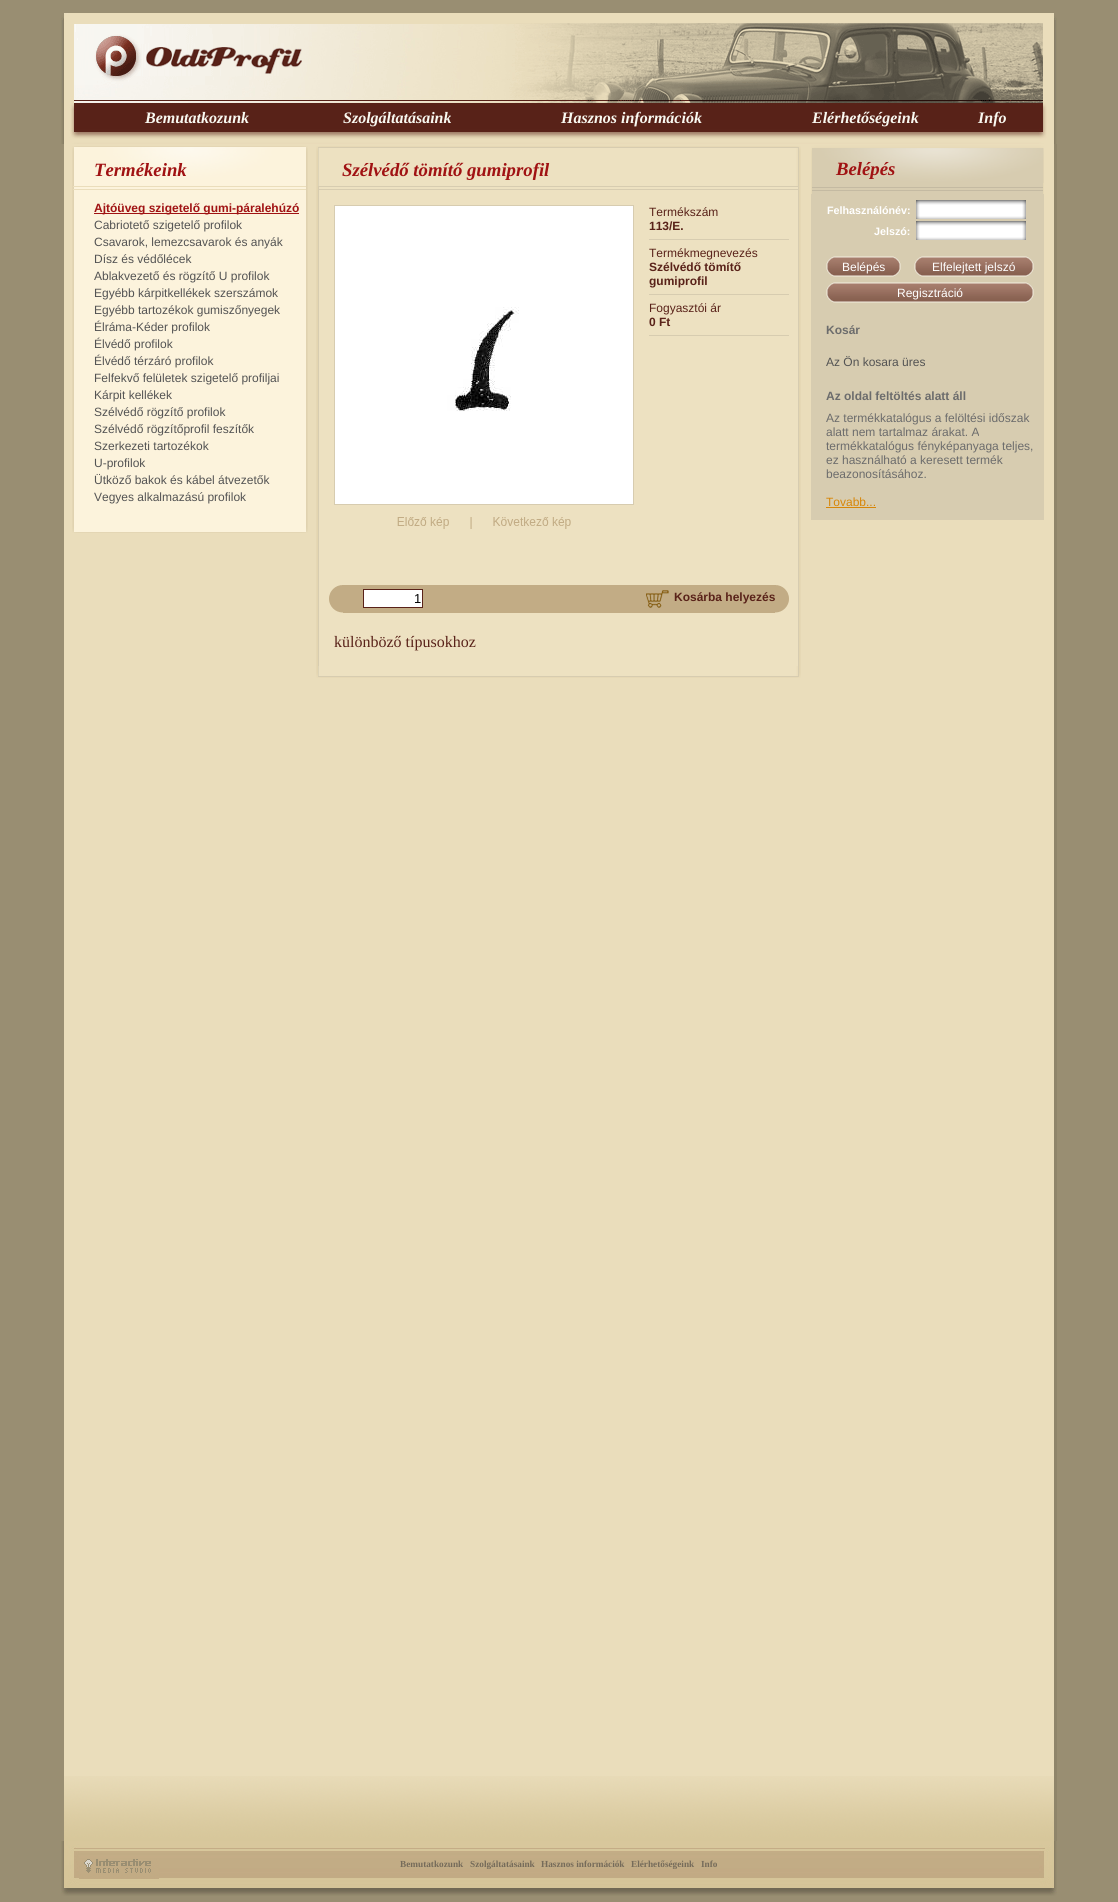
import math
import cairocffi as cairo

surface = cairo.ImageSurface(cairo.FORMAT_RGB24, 1118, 1902)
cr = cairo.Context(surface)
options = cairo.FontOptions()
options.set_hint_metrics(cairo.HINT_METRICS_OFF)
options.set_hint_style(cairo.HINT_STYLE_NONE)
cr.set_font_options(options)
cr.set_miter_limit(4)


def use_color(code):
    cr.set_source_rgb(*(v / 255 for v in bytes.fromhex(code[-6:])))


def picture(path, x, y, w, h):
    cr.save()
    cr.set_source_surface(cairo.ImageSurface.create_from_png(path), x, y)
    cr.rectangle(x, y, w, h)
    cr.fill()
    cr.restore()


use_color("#998e72")
cr.paint()
picture("img1.png", 61, 13, 996, 90)
picture("img2.png", 61, 103, 18, 41)
picture("img3.png", 79, 103, 960, 41)
cr.select_font_face("Liberation Serif", cairo.FONT_SLANT_ITALIC, cairo.FONT_WEIGHT_BOLD)
cr.set_font_size(16)
use_color("#f9f9f1")
cr.move_to(145, 123)
cr.show_text("Bemutatkozunk")
cr.move_to(343, 123)
cr.show_text("Szolgáltatásaink")
cr.move_to(561, 123)
cr.show_text("Hasznos információk")
cr.move_to(812, 123)
cr.show_text("Elérhetőségeink")
cr.move_to(978, 123)
cr.show_text("Info")
picture("img4.png", 1039, 103, 18, 41)
use_color("#eaddbb")
cr.rectangle(64, 144, 990, 1632)
cr.fill()
picture("img5.png", 64, 1776, 990, 65)
picture("img6.png", 72, 146, 236, 49)
cr.set_font_size(18.75)
use_color("#a01213")
cr.move_to(94, 176)
cr.show_text("Termékeink")
picture("img7.png", 72, 195, 236, 326)
cr.rectangle(94, 213, 205, 1)
cr.fill()
cr.select_font_face("Liberation Sans", cairo.FONT_SLANT_NORMAL, cairo.FONT_WEIGHT_BOLD)
cr.set_font_size(12)
cr.move_to(94, 212)
cr.show_text("Ajtóüveg szigetelő gumi-páralehúzó")
cr.select_font_face("Liberation Sans")
use_color("#535353")
cr.move_to(94, 229)
cr.show_text("Cabriotető szigetelő profilok")
cr.move_to(94, 246)
cr.show_text("Csavarok, lemezcsavarok és anyák")
cr.move_to(94, 263)
cr.show_text("Dísz és védőlécek")
cr.move_to(94, 280)
cr.show_text("Ablakvezető és rögzítő U profilok")
cr.move_to(94, 297)
cr.show_text("Egyébb kárpitkellékek szerszámok")
cr.move_to(94, 314)
cr.show_text("Egyébb tartozékok gumiszőnyegek")
cr.move_to(94, 331)
cr.show_text("Élráma-Kéder profilok")
cr.move_to(94, 348)
cr.show_text("Élvédő profilok")
cr.move_to(94, 365)
cr.show_text("Élvédő térzáró profilok")
cr.move_to(94, 382)
cr.show_text("Felfekvő felületek szigetelő profiljai")
cr.move_to(94, 399)
cr.show_text("Kárpit kellékek")
cr.move_to(94, 416)
cr.show_text("Szélvédő rögzítő profilok")
cr.move_to(94, 433)
cr.show_text("Szélvédő rögzítőprofil feszítők")
cr.move_to(94, 450)
cr.show_text("Szerkezeti tartozékok")
cr.move_to(94, 467)
cr.show_text("U-profilok")
cr.move_to(94, 484)
cr.show_text("Ütköző bakok és kábel átvezetők")
cr.move_to(94, 501)
cr.show_text("Vegyes alkalmazású profilok")
picture("img8.png", 72, 521, 236, 12)
picture("img9.png", 316, 146, 485, 49)
cr.select_font_face("Liberation Serif", cairo.FONT_SLANT_ITALIC, cairo.FONT_WEIGHT_BOLD)
cr.set_font_size(18.75)
use_color("#a01213")
cr.move_to(342, 176)
cr.show_text("Szélvédő tömítő gumiprofil")
picture("img10.png", 316, 195, 485, 471)
picture("img11.png", 334, 205, 300, 324)
cr.select_font_face("Liberation Sans")
cr.set_font_size(12)
use_color("#592219")
cr.move_to(649, 216)
cr.show_text("Termékszám")
cr.select_font_face("Liberation Sans", cairo.FONT_SLANT_NORMAL, cairo.FONT_WEIGHT_BOLD)
cr.move_to(649, 230)
cr.show_text("113/E.")
use_color("#d7ccb0")
cr.rectangle(649, 239, 140, 1)
cr.fill()
cr.select_font_face("Liberation Sans")
use_color("#592219")
cr.move_to(649, 257)
cr.show_text("Termékmegnevezés")
cr.select_font_face("Liberation Sans", cairo.FONT_SLANT_NORMAL, cairo.FONT_WEIGHT_BOLD)
cr.move_to(649, 271)
cr.show_text("Szélvédő tömítő")
cr.move_to(649, 285)
cr.show_text("gumiprofil")
use_color("#d7ccb0")
cr.rectangle(649, 294, 140, 1)
cr.fill()
cr.select_font_face("Liberation Sans")
use_color("#592219")
cr.move_to(649, 312)
cr.show_text("Fogyasztói ár")
cr.select_font_face("Liberation Sans", cairo.FONT_SLANT_NORMAL, cairo.FONT_WEIGHT_BOLD)
cr.move_to(649, 326)
cr.show_text("0 Ft")
use_color("#d7ccb0")
cr.rectangle(649, 335, 140, 1)
cr.fill()
use_color("#c2ac85")
cr.rectangle(343, 585, 432, 28)
cr.fill()
picture("img12.png", 329, 585, 14, 28)
use_color("#ffffff")
cr.rectangle(363.5, 589.5, 59, 18)
cr.fill_preserve()
use_color("#592219")
cr.set_line_width(1)
cr.stroke()
cr.select_font_face("Liberation Sans")
cr.set_font_size(13)
use_color("#000000")
cr.move_to(414, 603)
cr.show_text("1")
picture("img13.png", 646, 590, 23, 18)
cr.select_font_face("Liberation Sans", cairo.FONT_SLANT_NORMAL, cairo.FONT_WEIGHT_BOLD)
cr.set_font_size(12)
use_color("#592219")
cr.move_to(674, 601)
cr.show_text("Kosárba helyezés")
picture("img14.png", 775, 585, 14, 28)
cr.select_font_face("Liberation Serif")
cr.set_font_size(16)
cr.move_to(334, 647)
cr.show_text("különböző típusokhoz")
picture("img15.png", 316, 666, 485, 12)
use_color("#d7ccb0")
cr.rectangle(811, 194, 233, 326)
cr.fill()
picture("img16.png", 811, 144, 233, 50)
cr.select_font_face("Liberation Serif", cairo.FONT_SLANT_ITALIC, cairo.FONT_WEIGHT_BOLD)
cr.set_font_size(18.75)
use_color("#a01213")
cr.move_to(836, 175)
cr.show_text("Belépés")
cr.select_font_face("Liberation Sans", cairo.FONT_SLANT_NORMAL, cairo.FONT_WEIGHT_BOLD)
cr.set_font_size(10.75)
use_color("#ffffff")
cr.move_to(827, 214)
cr.show_text("Felhasználónév:")
picture("img17.png", 916, 200, 5, 19)
picture("img18.png", 921, 200, 100, 19)
picture("img19.png", 1021, 200, 5, 19)
cr.move_to(874, 235)
cr.show_text("Jelszó:")
picture("img17.png", 916, 221, 5, 19)
picture("img18.png", 921, 221, 100, 19)
picture("img19.png", 1021, 221, 5, 19)
picture("img20.png", 826, 256, 10, 21)
picture("img21.png", 836, 256, 55, 21)
cr.select_font_face("Liberation Sans")
cr.set_font_size(12)
cr.move_to(842, 271)
cr.show_text("Belépés")
picture("img22.png", 891, 256, 10, 21)
picture("img20.png", 914, 256, 10, 21)
picture("img23.png", 924, 256, 100, 21)
cr.move_to(932, 271)
cr.show_text("Elfelejtett jelszó")
picture("img22.png", 1024, 256, 10, 21)
picture("img20.png", 826, 282, 10, 21)
picture("img24.png", 836, 282, 188, 21)
cr.move_to(897, 297)
cr.show_text("Regisztráció")
picture("img22.png", 1024, 282, 10, 21)
cr.select_font_face("Liberation Sans", cairo.FONT_SLANT_NORMAL, cairo.FONT_WEIGHT_BOLD)
use_color("#6c6c6c")
cr.move_to(826, 334)
cr.show_text("Kosár")
cr.select_font_face("Liberation Sans")
use_color("#535353")
cr.move_to(826, 366)
cr.show_text("Az Ön kosara üres")
cr.select_font_face("Liberation Sans", cairo.FONT_SLANT_NORMAL, cairo.FONT_WEIGHT_BOLD)
use_color("#6c6c6c")
cr.move_to(826, 400)
cr.show_text("Az oldal feltöltés alatt áll")
cr.select_font_face("Liberation Sans")
cr.move_to(826, 422)
cr.show_text("Az termékkatalógus a felöltési időszak")
cr.move_to(826, 436)
cr.show_text("alatt nem tartalmaz árakat. A")
cr.move_to(826, 450)
cr.show_text("termékkatalógus fényképanyaga teljes,")
cr.move_to(826, 464)
cr.show_text("ez használható a keresett termék")
cr.move_to(826, 478)
cr.show_text("beazonosításához.")
use_color("#d78608")
cr.move_to(826, 506)
cr.show_text("Tovabb...")
cr.rectangle(826, 507, 50, 1)
cr.fill()
use_color("#8f856a")
cr.rectangle(1054, 144, 3, 1697)
cr.fill()
picture("img25.png", 61, 1841, 18, 55)
picture("img26.png", 79, 1841, 960, 55)
picture("img27.png", 79, 1859, 80, 20)
cr.select_font_face("Liberation Serif", cairo.FONT_SLANT_NORMAL, cairo.FONT_WEIGHT_BOLD)
cr.set_font_size(9.25)
use_color("#756b5a")
cr.move_to(400, 1867)
cr.show_text("Bemutatkozunk")
cr.move_to(470, 1867)
cr.show_text("Szolgáltatásaink")
cr.move_to(541, 1867)
cr.show_text("Hasznos információk")
cr.move_to(631, 1867)
cr.show_text("Elérhetőségeink")
cr.move_to(701, 1867)
cr.show_text("Info")
picture("img28.png", 1039, 1841, 18, 55)
surface.write_to_png("result.png")
